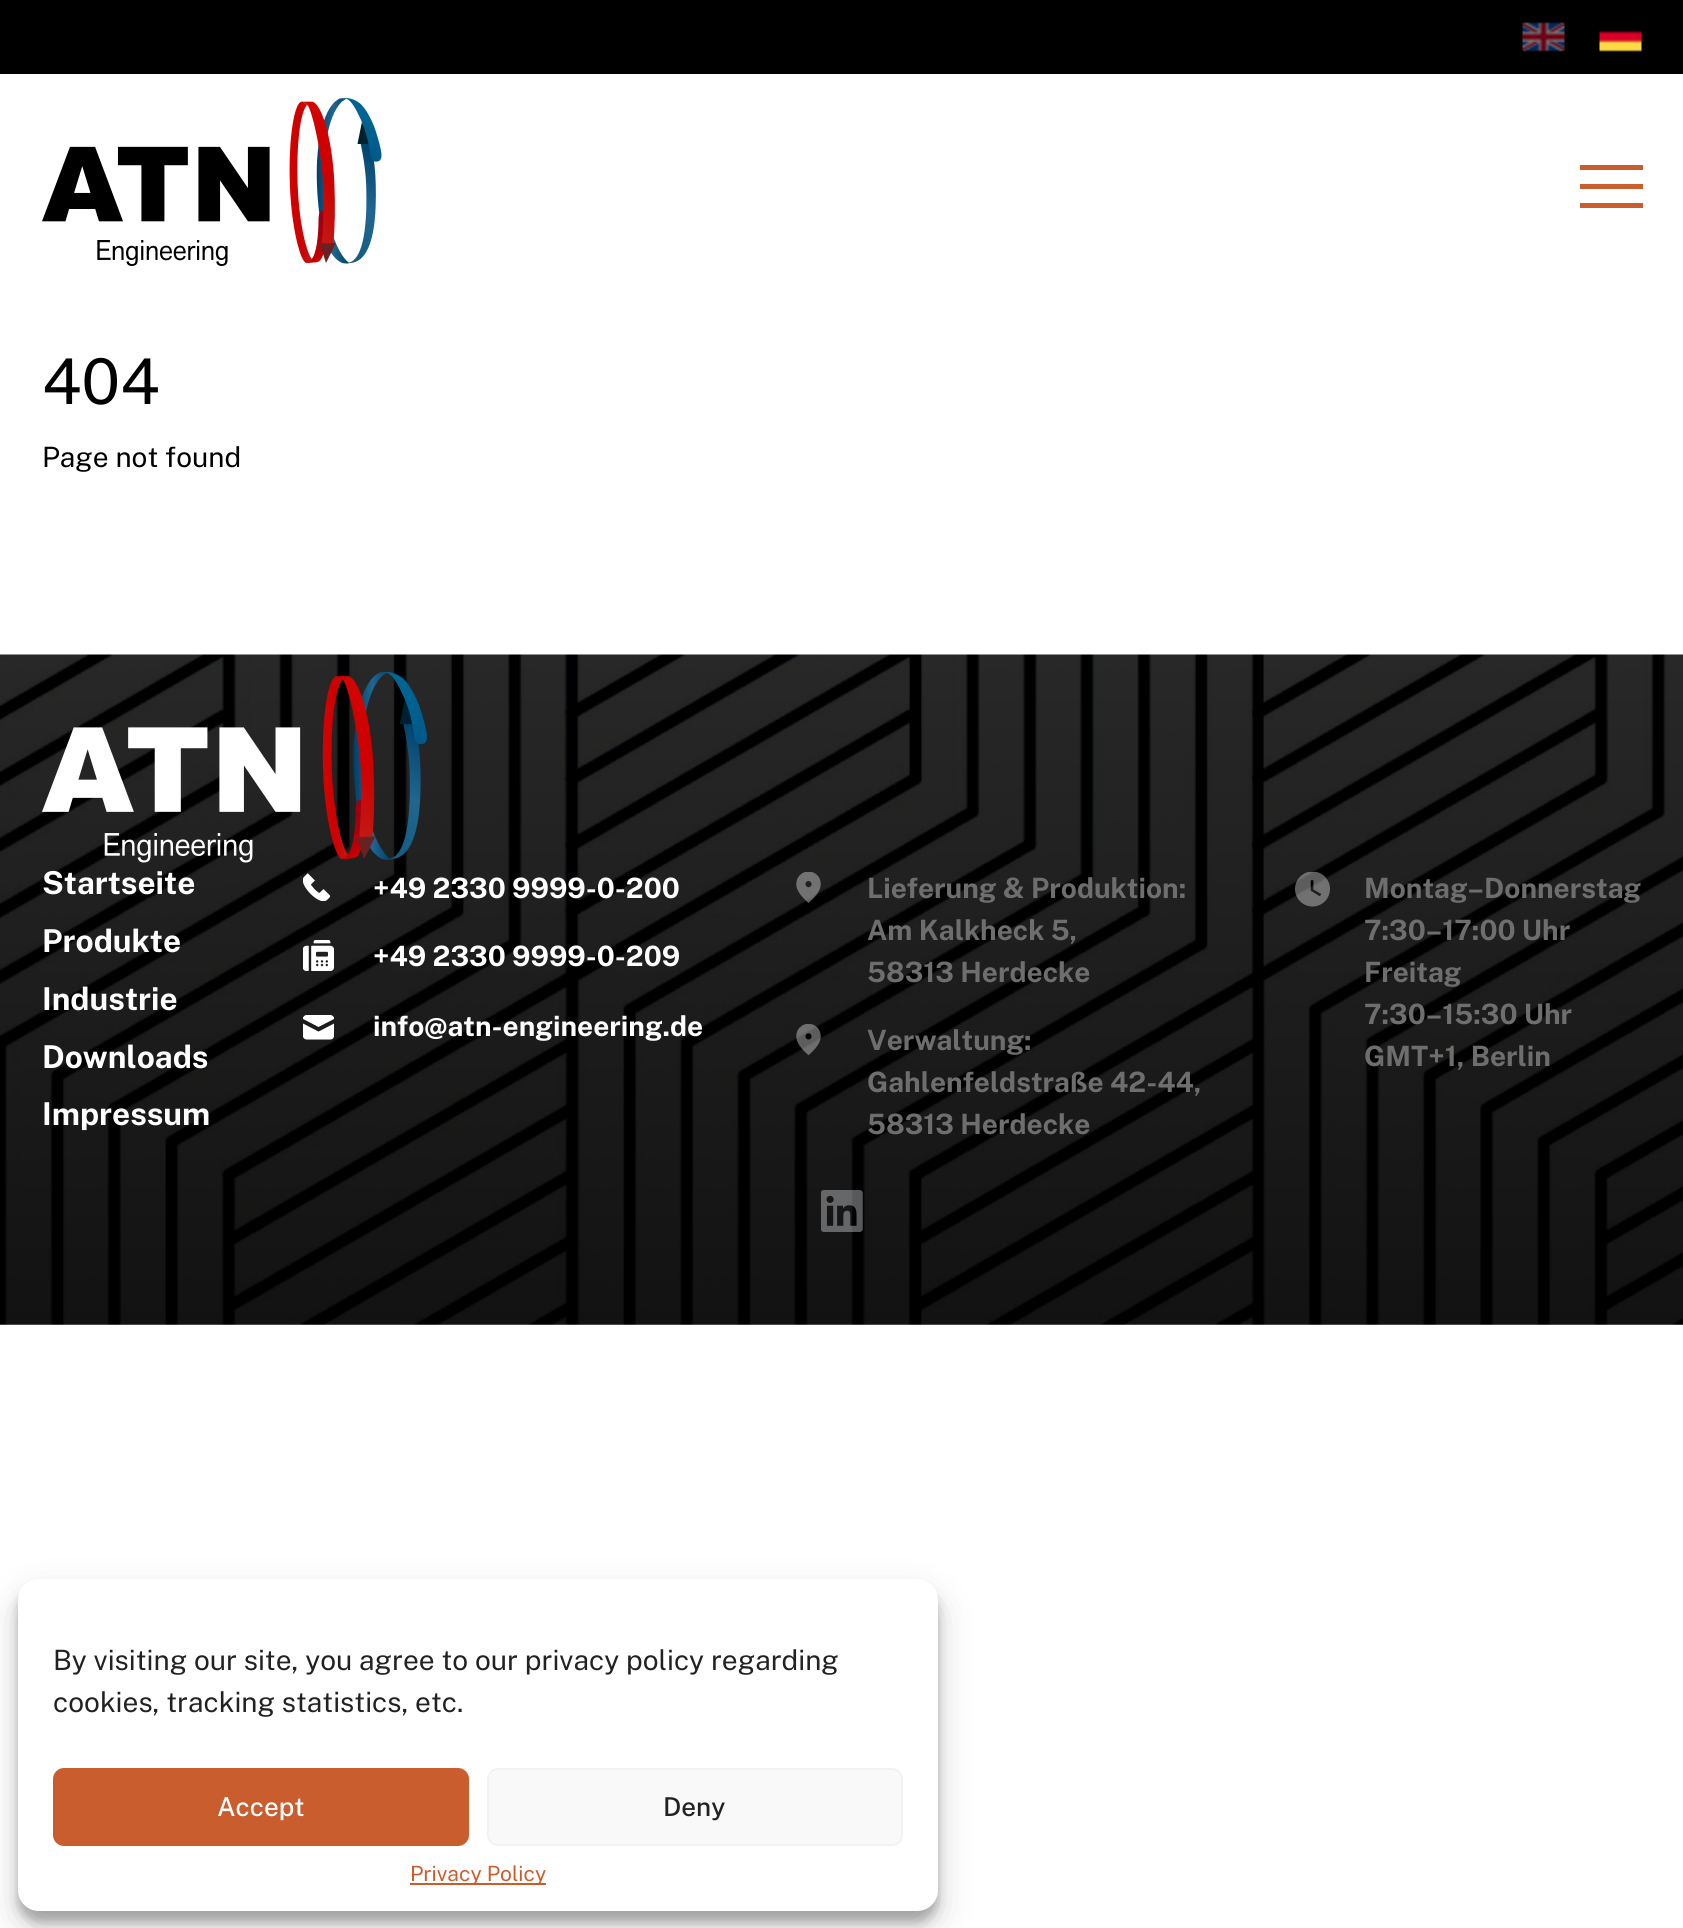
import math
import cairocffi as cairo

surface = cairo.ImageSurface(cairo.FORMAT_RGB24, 1683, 1928)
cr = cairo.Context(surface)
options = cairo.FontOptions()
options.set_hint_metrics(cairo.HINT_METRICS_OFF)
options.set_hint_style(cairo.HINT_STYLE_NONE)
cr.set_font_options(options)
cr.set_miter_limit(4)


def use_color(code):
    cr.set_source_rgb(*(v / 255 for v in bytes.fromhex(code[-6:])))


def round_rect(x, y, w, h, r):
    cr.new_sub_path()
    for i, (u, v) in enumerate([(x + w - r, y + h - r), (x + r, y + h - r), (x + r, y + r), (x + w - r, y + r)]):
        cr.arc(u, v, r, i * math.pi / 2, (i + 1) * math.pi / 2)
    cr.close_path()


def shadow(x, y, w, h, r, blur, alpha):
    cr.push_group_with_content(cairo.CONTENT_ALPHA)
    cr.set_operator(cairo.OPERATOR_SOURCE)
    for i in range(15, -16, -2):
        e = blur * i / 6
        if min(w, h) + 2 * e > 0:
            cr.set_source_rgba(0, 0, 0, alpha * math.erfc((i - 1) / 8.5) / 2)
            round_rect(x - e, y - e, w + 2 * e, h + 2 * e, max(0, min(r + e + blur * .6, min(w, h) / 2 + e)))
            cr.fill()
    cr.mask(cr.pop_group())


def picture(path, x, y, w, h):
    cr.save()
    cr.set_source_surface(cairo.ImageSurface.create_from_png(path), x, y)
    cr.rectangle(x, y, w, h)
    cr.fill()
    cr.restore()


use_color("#ffffff")
cr.paint()
use_color("#000000")
cr.rectangle(0, 0, 1683, 74)
cr.fill()
picture("img1.png", 1522, 22, 43, 30)
picture("img2.png", 1599, 30, 43, 22)
picture("img3.png", 42, 98, 340, 168)
use_color("#c95d2e")
cr.rectangle(1580, 165, 63, 5)
cr.fill()
cr.rectangle(1580, 184, 63, 5)
cr.fill()
cr.rectangle(1580, 203, 63, 5)
cr.fill()
cr.select_font_face("Public Sans")
cr.set_font_size(63)
use_color("#000000")
cr.move_to(42, 404)
cr.show_text("404")
cr.set_font_size(28)
cr.move_to(42, 467)
cr.show_text("Page not found")
picture("img4.png", 0, 654, 1683, 671)
picture("img5.png", 42, 672, 385, 191)
cr.select_font_face("Public Sans", cairo.FONT_SLANT_NORMAL, cairo.FONT_WEIGHT_BOLD)
cr.set_font_size(31.5)
use_color("#ffffff")
cr.move_to(42, 894)
cr.show_text("Startseite")
cr.move_to(42, 952)
cr.show_text("Produkte")
cr.move_to(42, 1010)
cr.show_text("Industrie")
cr.move_to(42, 1068)
cr.show_text("Downloads")
cr.move_to(42, 1125)
cr.show_text("Impressum")
picture("img6.png", 303, 873, 28, 28)
cr.set_font_size(28)
cr.move_to(373, 898)
cr.show_text("+49 2330 9999-0-200")
picture("img7.png", 303, 940, 31, 31)
cr.move_to(373, 966)
cr.show_text("+49 2330 9999-0-209")
picture("img8.png", 303, 1015, 31, 25)
cr.move_to(373, 1036)
cr.show_text("info@atn-engineering.de")
picture("img9.png", 796, 872, 25, 31)
use_color("#6e6e6e")
cr.move_to(867, 898)
cr.show_text("Lieferung & Produktion:")
cr.move_to(867, 940)
cr.show_text("Am Kalkheck 5,")
cr.move_to(867, 982)
cr.show_text("58313 Herdecke")
picture("img10.png", 796, 1024, 25, 31)
cr.move_to(867, 1050)
cr.show_text("Verwaltung:")
cr.move_to(867, 1092)
cr.show_text("Gahlenfeldstraße 42-44,")
cr.move_to(867, 1134)
cr.show_text("58313 Herdecke")
picture("img11.png", 1295, 872, 35, 35)
cr.move_to(1364, 898)
cr.show_text("Montag–Donnerstag")
cr.move_to(1364, 940)
cr.show_text("7:30–17:00 Uhr")
cr.move_to(1364, 982)
cr.show_text("Freitag")
cr.move_to(1364, 1024)
cr.show_text("7:30–15:30 Uhr")
cr.move_to(1364, 1066)
cr.show_text("GMT+1, Berlin")
picture("img12.png", 821, 1190, 42, 42)
use_color("#000000")
shadow(18, 1589, 920, 333, 21, 5, 0.23)
shadow(18, 1596, 920, 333, 21, 17.5, 0.19)
use_color("#ffffff")
round_rect(18, 1579, 920, 332, 21)
cr.fill()
cr.select_font_face("Public Sans")
use_color("#222222")
cr.move_to(53, 1670)
cr.show_text("By visiting our site, you agree to our privacy policy regarding")
cr.move_to(53, 1712)
cr.show_text("cookies, tracking statistics, etc.")
use_color("#c95d2e")
round_rect(54, 1769, 414, 76, 10)
cr.fill_preserve()
cr.stroke()
cr.select_font_face("Public Sans Medium")
cr.set_font_size(26)
use_color("#ffffff")
cr.move_to(217, 1816)
cr.show_text("Accept")
use_color("#f9f9f9")
round_rect(488, 1769, 414, 76, 10)
cr.fill_preserve()
use_color("#f2f2f2")
cr.stroke()
use_color("#222222")
cr.move_to(663, 1816)
cr.show_text("Deny")
use_color("#c95d2e")
cr.rectangle(410, 1883, 136, 2)
cr.fill()
cr.select_font_face("Public Sans")
cr.set_font_size(21)
cr.move_to(410, 1881)
cr.show_text("Privacy Policy")
surface.write_to_png("result.png")
